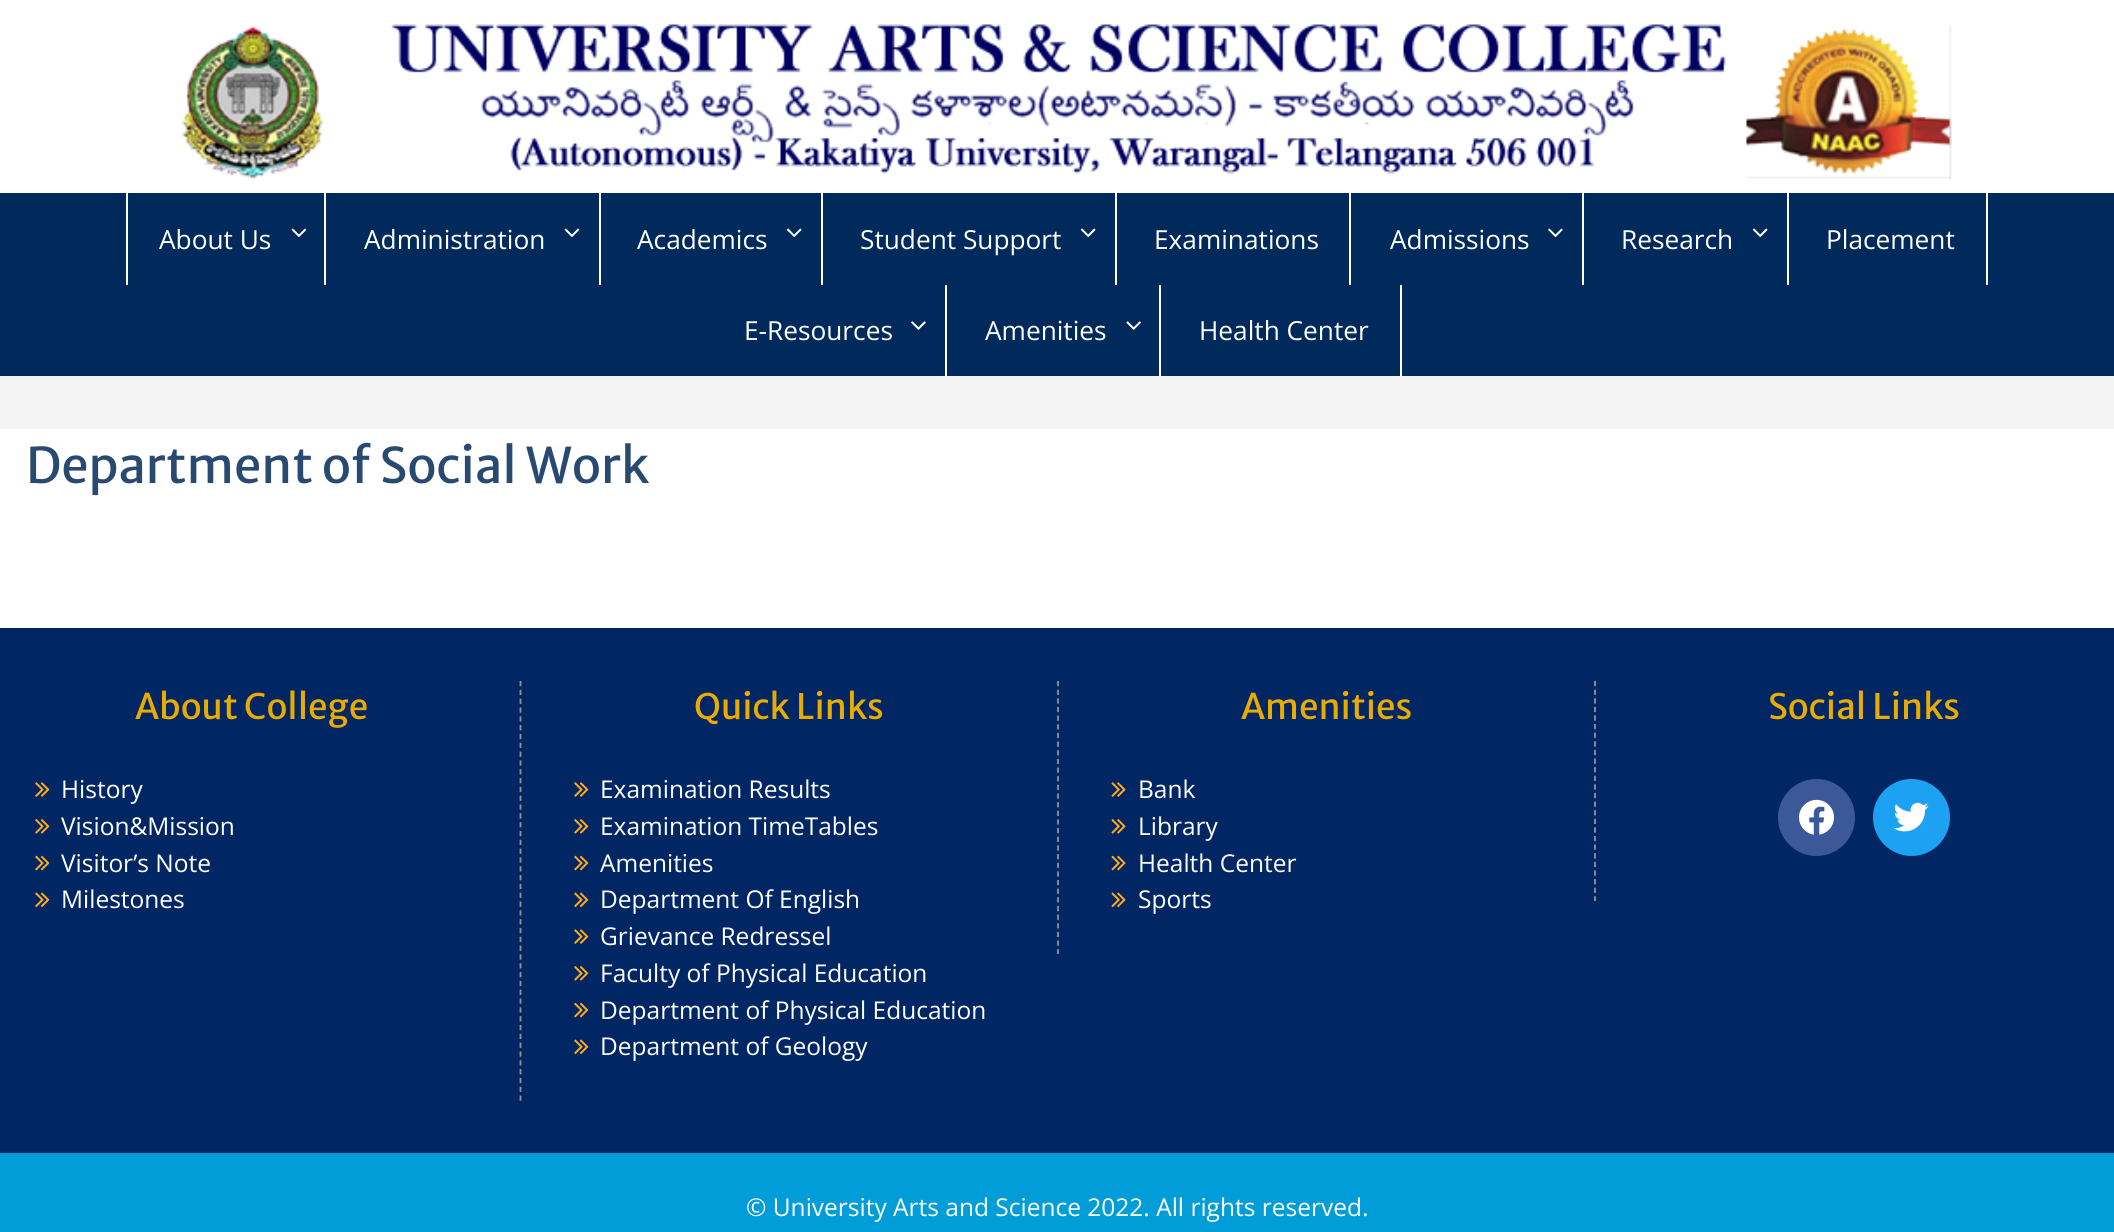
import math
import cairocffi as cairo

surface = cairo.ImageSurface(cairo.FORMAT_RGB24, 2114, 1232)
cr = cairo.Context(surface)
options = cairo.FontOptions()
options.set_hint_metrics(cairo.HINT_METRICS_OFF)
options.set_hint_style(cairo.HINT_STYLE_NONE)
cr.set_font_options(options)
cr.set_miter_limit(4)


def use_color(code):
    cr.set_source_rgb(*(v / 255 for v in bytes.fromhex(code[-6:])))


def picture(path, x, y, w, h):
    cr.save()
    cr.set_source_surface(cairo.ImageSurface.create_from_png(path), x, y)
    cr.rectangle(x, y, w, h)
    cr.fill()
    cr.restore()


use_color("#ffffff")
cr.paint()
picture("img1.png", 181, 24, 1771, 155)
use_color("#002a5c")
cr.rectangle(0, 193, 2114, 183)
cr.fill()
use_color("#ffffff")
cr.rectangle(324, 193, 2, 92)
cr.fill()
cr.rectangle(126, 193, 2, 92)
cr.fill()
cr.select_font_face("Open Sans")
cr.set_font_size(26.25)
cr.move_to(159, 249)
cr.show_text("About Us")
picture("img2.png", 291, 228, 16, 9)
cr.rectangle(599, 193, 2, 92)
cr.fill()
cr.move_to(364, 249)
cr.show_text("Administration")
picture("img2.png", 564, 228, 16, 9)
cr.rectangle(821, 193, 2, 92)
cr.fill()
cr.move_to(637, 249)
cr.show_text("Academics")
picture("img3.png", 786, 228, 16, 9)
cr.rectangle(1115, 193, 2, 92)
cr.fill()
cr.move_to(860, 249)
cr.show_text("Student Support")
picture("img3.png", 1080, 228, 16, 9)
cr.rectangle(1349, 193, 2, 92)
cr.fill()
cr.move_to(1154, 249)
cr.show_text("Examinations")
cr.rectangle(1582, 193, 2, 92)
cr.fill()
cr.move_to(1390, 249)
cr.show_text("Admissions")
picture("img4.png", 1548, 228, 15, 9)
cr.rectangle(1787, 193, 2, 92)
cr.fill()
cr.move_to(1621, 249)
cr.show_text("Research")
picture("img3.png", 1752, 228, 16, 9)
cr.rectangle(1986, 193, 2, 92)
cr.fill()
cr.move_to(1826, 249)
cr.show_text("Placement")
cr.rectangle(945, 285, 2, 91)
cr.fill()
cr.move_to(744, 340)
cr.show_text("E-Resources")
picture("img5.png", 911, 321, 15, 9)
cr.rectangle(1159, 285, 2, 91)
cr.fill()
cr.move_to(985, 340)
cr.show_text("Amenities")
picture("img6.png", 1126, 321, 15, 9)
cr.rectangle(1400, 285, 2, 91)
cr.fill()
cr.move_to(1199, 340)
cr.show_text("Health Center")
use_color("#f4f4f4")
cr.rectangle(0, 376, 2114, 53)
cr.fill()
cr.select_font_face("Merriweather Sans")
cr.set_font_size(49)
use_color("#294a70")
cr.move_to(26, 483)
cr.show_text("Department of Social Work")
use_color("#002664")
cr.rectangle(0, 628, 2114, 525)
cr.fill()
cr.set_font_size(35)
use_color("#eaab00")
cr.move_to(135, 719)
cr.show_text("About College")
picture("img7.png", 35, 782, 15, 15)
cr.select_font_face("Open Sans")
cr.set_font_size(24.5)
use_color("#ffffff")
cr.move_to(61, 798)
cr.show_text("History")
picture("img8.png", 35, 819, 15, 15)
cr.move_to(61, 835)
cr.show_text("Vision&Mission")
picture("img9.png", 35, 855, 15, 16)
cr.move_to(61, 872)
cr.show_text("Visitor’s Note")
picture("img10.png", 35, 892, 15, 16)
cr.move_to(61, 908)
cr.show_text("Milestones")
cr.new_path()
cr.move_to(520.5, 681)
cr.line_to(520.5, 1101)
use_color("#939393")
cr.set_line_width(1.8)
cr.set_dash([5.25, 3.57])
cr.stroke()
cr.select_font_face("Merriweather Sans")
cr.set_font_size(35)
use_color("#eaab00")
cr.move_to(694, 719)
cr.show_text("Quick Links")
picture("img7.png", 574, 782, 15, 15)
cr.select_font_face("Open Sans")
cr.set_font_size(24.5)
use_color("#ffffff")
cr.move_to(600, 798)
cr.show_text("Examination Results")
picture("img8.png", 574, 819, 15, 15)
cr.move_to(600, 835)
cr.show_text("Examination TimeTables")
picture("img9.png", 574, 855, 15, 16)
cr.move_to(600, 872)
cr.show_text("Amenities")
picture("img10.png", 574, 892, 15, 16)
cr.move_to(600, 908)
cr.show_text("Department Of English")
picture("img7.png", 574, 929, 15, 15)
cr.move_to(600, 945)
cr.show_text("Grievance Redressel")
picture("img8.png", 574, 966, 15, 15)
cr.move_to(600, 982)
cr.show_text("Faculty of Physical Education")
picture("img9.png", 574, 1002, 15, 16)
cr.move_to(600, 1019)
cr.show_text("Department of Physical Education")
picture("img10.png", 574, 1039, 15, 16)
cr.move_to(600, 1055)
cr.show_text("Department of Geology")
cr.new_path()
cr.move_to(1058, 681)
cr.line_to(1058, 954)
use_color("#939393")
cr.set_dash([5.25, 3.4])
cr.stroke()
cr.select_font_face("Merriweather Sans")
cr.set_font_size(35)
use_color("#eaab00")
cr.move_to(1241, 719)
cr.show_text("Amenities")
picture("img11.png", 1111, 782, 15, 15)
cr.select_font_face("Open Sans")
cr.set_font_size(24.5)
use_color("#ffffff")
cr.move_to(1138, 798)
cr.show_text("Bank")
picture("img12.png", 1111, 819, 15, 15)
cr.move_to(1138, 835)
cr.show_text("Library")
picture("img13.png", 1111, 855, 15, 16)
cr.move_to(1138, 872)
cr.show_text("Health Center")
picture("img14.png", 1111, 892, 15, 16)
cr.move_to(1138, 908)
cr.show_text("Sports")
cr.new_path()
cr.move_to(1595, 681)
cr.line_to(1595, 901)
use_color("#939393")
cr.set_dash([5.25, 3.36])
cr.stroke()
cr.select_font_face("Merriweather Sans")
cr.set_font_size(35)
use_color("#eaab00")
cr.move_to(1768, 719)
cr.show_text("Social Links")
use_color("#3b5998")
cr.new_path()
cr.arc(1816.5, 817.5, 38.5, 0, 2 * math.pi)
cr.fill()
picture("img15.png", 1799, 799, 35, 36)
use_color("#1da1f2")
cr.arc(1911.5, 817.5, 38.5, 0, 2 * math.pi)
cr.fill()
picture("img16.png", 1893, 802, 36, 30)
use_color("#009dd8")
cr.rectangle(0, 1153, 2114, 79)
cr.fill()
cr.select_font_face("Open Sans")
cr.set_font_size(24.5)
use_color("#ffffff")
cr.move_to(746, 1216)
cr.show_text("© University Arts and Science 2022. All rights reserved.")
surface.write_to_png("result.png")
